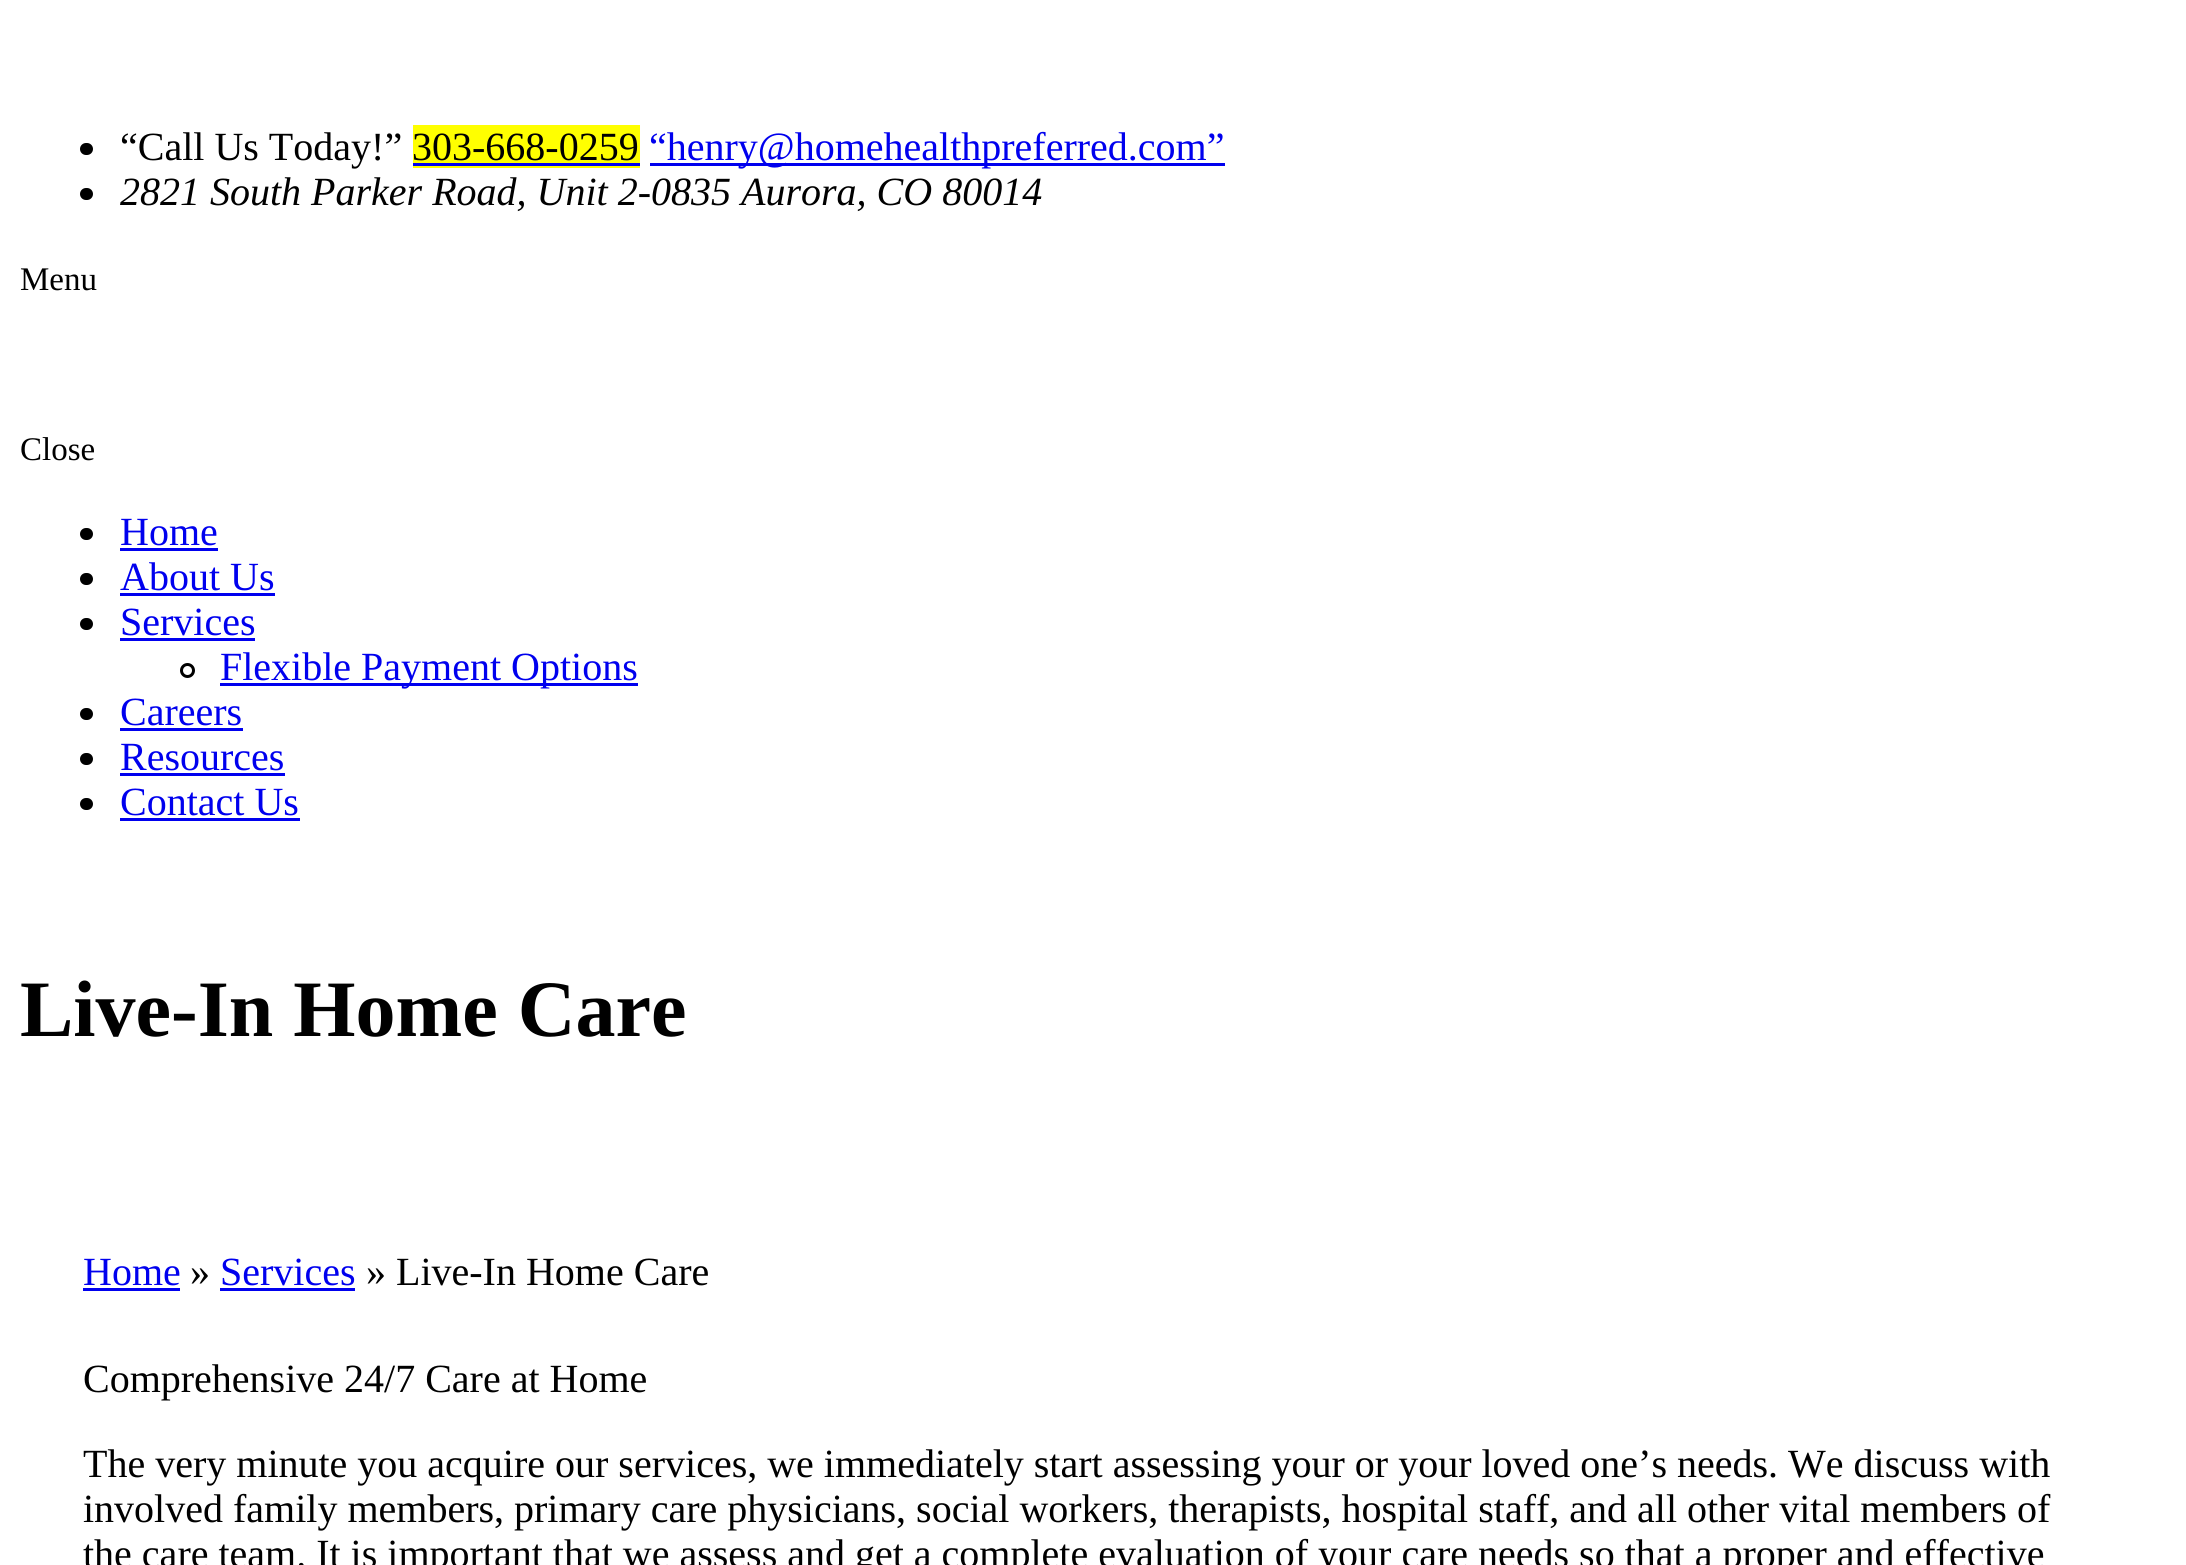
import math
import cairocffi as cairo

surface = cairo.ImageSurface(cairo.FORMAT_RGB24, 2186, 1565)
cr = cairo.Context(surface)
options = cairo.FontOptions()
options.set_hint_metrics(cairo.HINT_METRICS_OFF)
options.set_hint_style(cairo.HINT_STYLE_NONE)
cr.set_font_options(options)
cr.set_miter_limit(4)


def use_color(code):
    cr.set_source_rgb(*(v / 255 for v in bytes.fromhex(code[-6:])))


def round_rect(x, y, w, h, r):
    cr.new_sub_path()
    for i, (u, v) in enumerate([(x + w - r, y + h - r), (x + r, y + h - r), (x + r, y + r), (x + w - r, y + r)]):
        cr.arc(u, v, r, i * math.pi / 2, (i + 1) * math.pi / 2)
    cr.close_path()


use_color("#ffffff")
cr.paint()
use_color("#000000")
round_rect(80, 143, 13, 12, 6)
cr.fill()
cr.select_font_face("Liberation Serif")
cr.set_font_size(40)
cr.move_to(120, 160)
cr.show_text("“Call Us Today!”")
use_color("#ffff00")
cr.rectangle(413, 125, 227, 43)
cr.fill()
use_color("#000000")
cr.move_to(412, 160)
cr.show_text("303-668-0259")
use_color("#0000ee")
cr.rectangle(413, 163, 227, 3)
cr.fill()
cr.rectangle(650, 163, 575, 3)
cr.fill()
cr.move_to(649, 160)
cr.show_text("“henry@homehealthpreferred.com”")
use_color("#000000")
round_rect(80, 188, 13, 12, 6)
cr.fill()
cr.select_font_face("Liberation Serif", cairo.FONT_SLANT_ITALIC)
cr.move_to(120, 205)
cr.show_text("2821 South Parker Road, Unit 2-0835 Aurora, CO 80014")
cr.select_font_face("Liberation Serif")
cr.set_font_size(33)
cr.move_to(20, 290)
cr.show_text("Menu")
cr.move_to(20, 460)
cr.show_text("Close")
round_rect(80, 528, 13, 12, 6)
cr.fill()
cr.set_font_size(40)
use_color("#0000ee")
cr.move_to(120, 545)
cr.show_text("Home")
cr.rectangle(120, 548, 98, 3)
cr.fill()
use_color("#000000")
round_rect(80, 573, 13, 12, 6)
cr.fill()
use_color("#0000ee")
cr.move_to(120, 590)
cr.show_text("About Us")
cr.rectangle(120, 593, 155, 3)
cr.fill()
use_color("#000000")
round_rect(80, 618, 13, 12, 6)
cr.fill()
use_color("#0000ee")
cr.move_to(120, 635)
cr.show_text("Services")
cr.rectangle(120, 638, 135, 3)
cr.fill()
cr.arc(187.5, 670.5, 6, 0, 2 * math.pi)
use_color("#000000")
cr.set_line_width(3)
cr.stroke()
use_color("#0000ee")
cr.rectangle(220, 683, 418, 3)
cr.fill()
cr.move_to(220, 680)
cr.show_text("Flexible Payment Options")
use_color("#000000")
round_rect(80, 708, 13, 12, 6)
cr.fill()
use_color("#0000ee")
cr.move_to(120, 725)
cr.show_text("Careers")
cr.rectangle(120, 728, 123, 3)
cr.fill()
use_color("#000000")
round_rect(80, 753, 13, 12, 6)
cr.fill()
use_color("#0000ee")
cr.move_to(120, 770)
cr.show_text("Resources")
cr.rectangle(120, 773, 165, 3)
cr.fill()
use_color("#000000")
round_rect(80, 798, 13, 12, 6)
cr.fill()
use_color("#0000ee")
cr.move_to(120, 815)
cr.show_text("Contact Us")
cr.rectangle(120, 818, 180, 3)
cr.fill()
cr.select_font_face("Liberation Serif", cairo.FONT_SLANT_NORMAL, cairo.FONT_WEIGHT_BOLD)
cr.set_font_size(80)
use_color("#000000")
cr.move_to(20, 1036)
cr.show_text("Live-In Home Care")
cr.select_font_face("Liberation Serif")
cr.set_font_size(40)
use_color("#0000ee")
cr.move_to(83, 1285)
cr.show_text("Home")
cr.rectangle(83, 1288, 97, 3)
cr.fill()
use_color("#000000")
cr.move_to(190, 1285)
cr.show_text("»")
use_color("#0000ee")
cr.move_to(220, 1285)
cr.show_text("Services")
cr.rectangle(220, 1288, 135, 3)
cr.fill()
use_color("#000000")
cr.move_to(366, 1285)
cr.show_text("» Live-In Home Care")
cr.move_to(83, 1392)
cr.show_text("Comprehensive 24/7 Care at Home")
cr.move_to(83, 1477)
cr.show_text("The very minute you acquire our services, we immediately start assessing your or your loved one’s needs. We discuss with")
cr.move_to(83, 1522)
cr.show_text("involved family members, primary care physicians, social workers, therapists, hospital staff, and all other vital members of")
cr.move_to(83, 1567)
cr.show_text("the care team. It is important that we assess and get a complete evaluation of your care needs so that a proper and effective")
surface.write_to_png("result.png")
